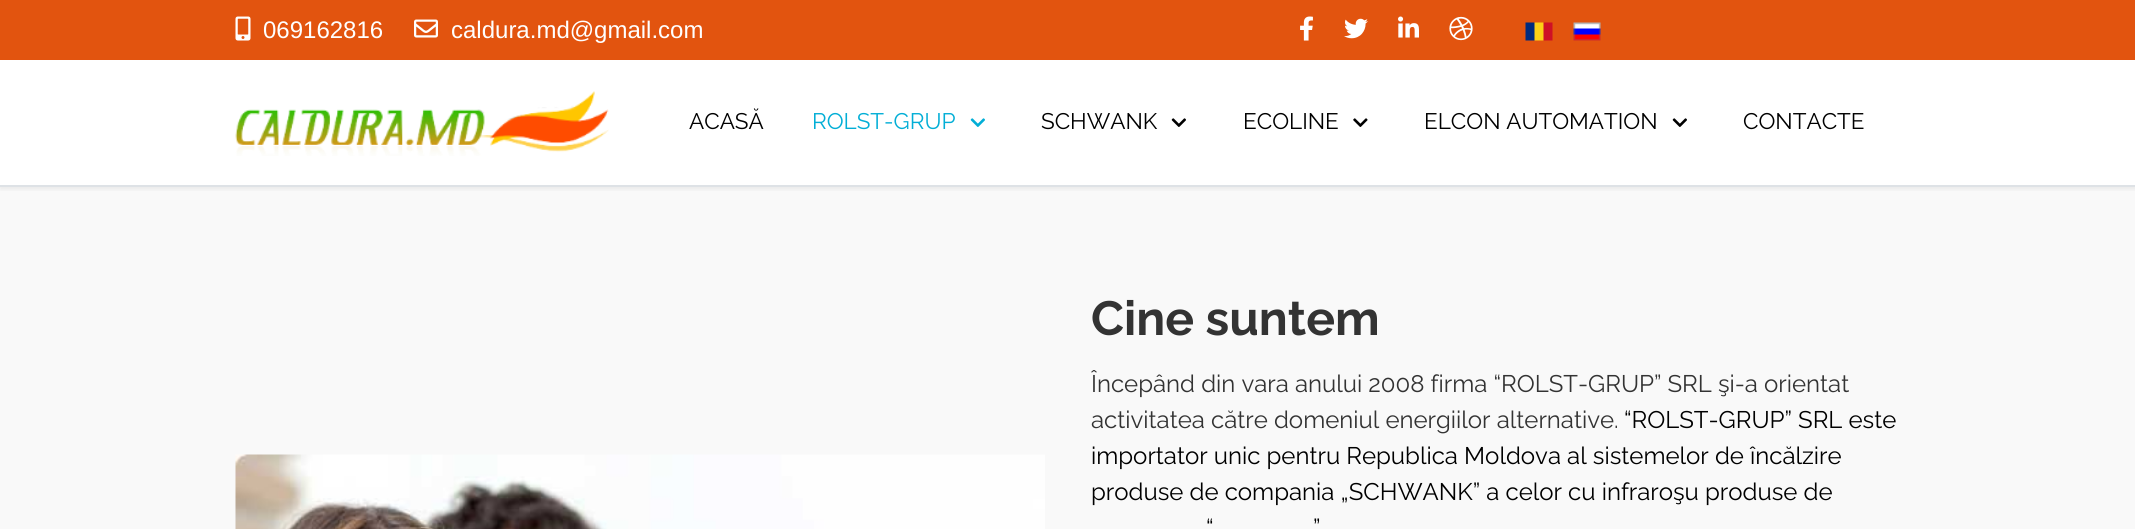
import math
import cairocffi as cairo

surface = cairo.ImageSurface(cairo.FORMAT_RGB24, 2135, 529)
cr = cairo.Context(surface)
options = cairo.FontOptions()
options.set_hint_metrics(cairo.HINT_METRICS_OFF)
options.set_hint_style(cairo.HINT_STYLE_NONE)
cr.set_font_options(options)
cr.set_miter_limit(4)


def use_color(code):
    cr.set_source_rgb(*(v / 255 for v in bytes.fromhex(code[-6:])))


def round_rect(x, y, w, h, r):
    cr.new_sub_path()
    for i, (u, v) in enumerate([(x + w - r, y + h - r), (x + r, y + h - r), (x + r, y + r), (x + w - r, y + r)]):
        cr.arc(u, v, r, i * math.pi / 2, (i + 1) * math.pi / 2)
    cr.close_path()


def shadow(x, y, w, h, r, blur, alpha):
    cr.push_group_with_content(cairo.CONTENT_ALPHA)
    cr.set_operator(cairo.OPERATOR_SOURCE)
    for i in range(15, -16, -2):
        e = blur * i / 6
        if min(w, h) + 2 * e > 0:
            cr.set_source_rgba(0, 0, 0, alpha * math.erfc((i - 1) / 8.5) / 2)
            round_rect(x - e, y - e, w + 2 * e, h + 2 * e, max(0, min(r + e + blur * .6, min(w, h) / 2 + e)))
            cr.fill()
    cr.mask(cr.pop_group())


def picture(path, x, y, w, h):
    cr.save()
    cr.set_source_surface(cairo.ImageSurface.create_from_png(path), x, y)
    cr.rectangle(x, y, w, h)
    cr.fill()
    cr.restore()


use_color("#ffffff")
cr.paint()
use_color("#e2540f")
cr.rectangle(0, 0, 2135, 60)
cr.fill()
picture("img1.png", 235, 16, 16, 25)
cr.select_font_face("Liberation Sans")
cr.set_font_size(24)
use_color("#ffffff")
cr.move_to(263, 38)
cr.show_text("069162816")
picture("img2.png", 414, 19, 24, 19)
cr.move_to(451, 38)
cr.show_text("caldura.md@gmail.com")
picture("img3.png", 1300, 16, 13, 25)
picture("img4.png", 1344, 18, 24, 21)
picture("img5.png", 1398, 16, 21, 22)
picture("img6.png", 1449, 16, 24, 25)
picture("img7.png", 1525, 22, 28, 19)
picture("img8.png", 1573, 22, 28, 19)
use_color("#f9f9f9")
cr.rectangle(0, 187, 2135, 342)
cr.fill()
cr.save()
cr.rectangle(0, 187, 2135, 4)
cr.clip()
use_color("#000000")
shadow(0, 63, 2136, 126, 0, 3, 0.07)
cr.restore()
use_color("#dee2e6")
cr.rectangle(0, 185, 2135, 2)
cr.fill()
picture("img9.png", 235, 91, 374, 65)
cr.select_font_face("Raleway")
cr.set_font_size(22.5)
use_color("#000000")
cr.move_to(689, 129)
cr.show_text("ACASĂ")
use_color("#02aed6")
cr.move_to(812, 129)
cr.show_text("ROLST-GRUP")
picture("img10.png", 970, 118, 15, 9)
use_color("#000000")
cr.move_to(1041, 129)
cr.show_text("SCHWANK")
picture("img11.png", 1171, 118, 15, 9)
cr.move_to(1243, 129)
cr.show_text("ECOLINE")
picture("img12.png", 1353, 118, 15, 9)
cr.move_to(1424, 129)
cr.show_text("ELCON AUTOMATION")
picture("img11.png", 1672, 118, 15, 9)
cr.move_to(1743, 129)
cr.show_text("CONTACTE")
picture("img13.png", 235, 454, 810, 75)
cr.select_font_face("Raleway", cairo.FONT_SLANT_NORMAL, cairo.FONT_WEIGHT_BOLD)
cr.set_font_size(48)
use_color("#333333")
cr.move_to(1091, 335)
cr.show_text("Cine suntem")
cr.select_font_face("Raleway")
cr.set_font_size(24)
cr.move_to(1091, 392)
cr.show_text("Începând din vara anului 2008 firma “ROLST-GRUP” SRL şi-a orientat")
cr.move_to(1091, 428)
cr.show_text("activitatea către domeniul energiilor alternative.")
use_color("#000000")
cr.move_to(1624, 428)
cr.show_text("“ROLST-GRUP” SRL este")
cr.move_to(1091, 464)
cr.show_text("importator unic pentru Republica Moldova al sistemelor de încălzire")
cr.move_to(1091, 500)
cr.show_text("produse de compania „SCHWANK” a celor cu infraroşu produse de")
cr.move_to(1206, 536)
cr.show_text("“")
cr.move_to(1313, 536)
cr.show_text("”")
surface.write_to_png("result.png")
